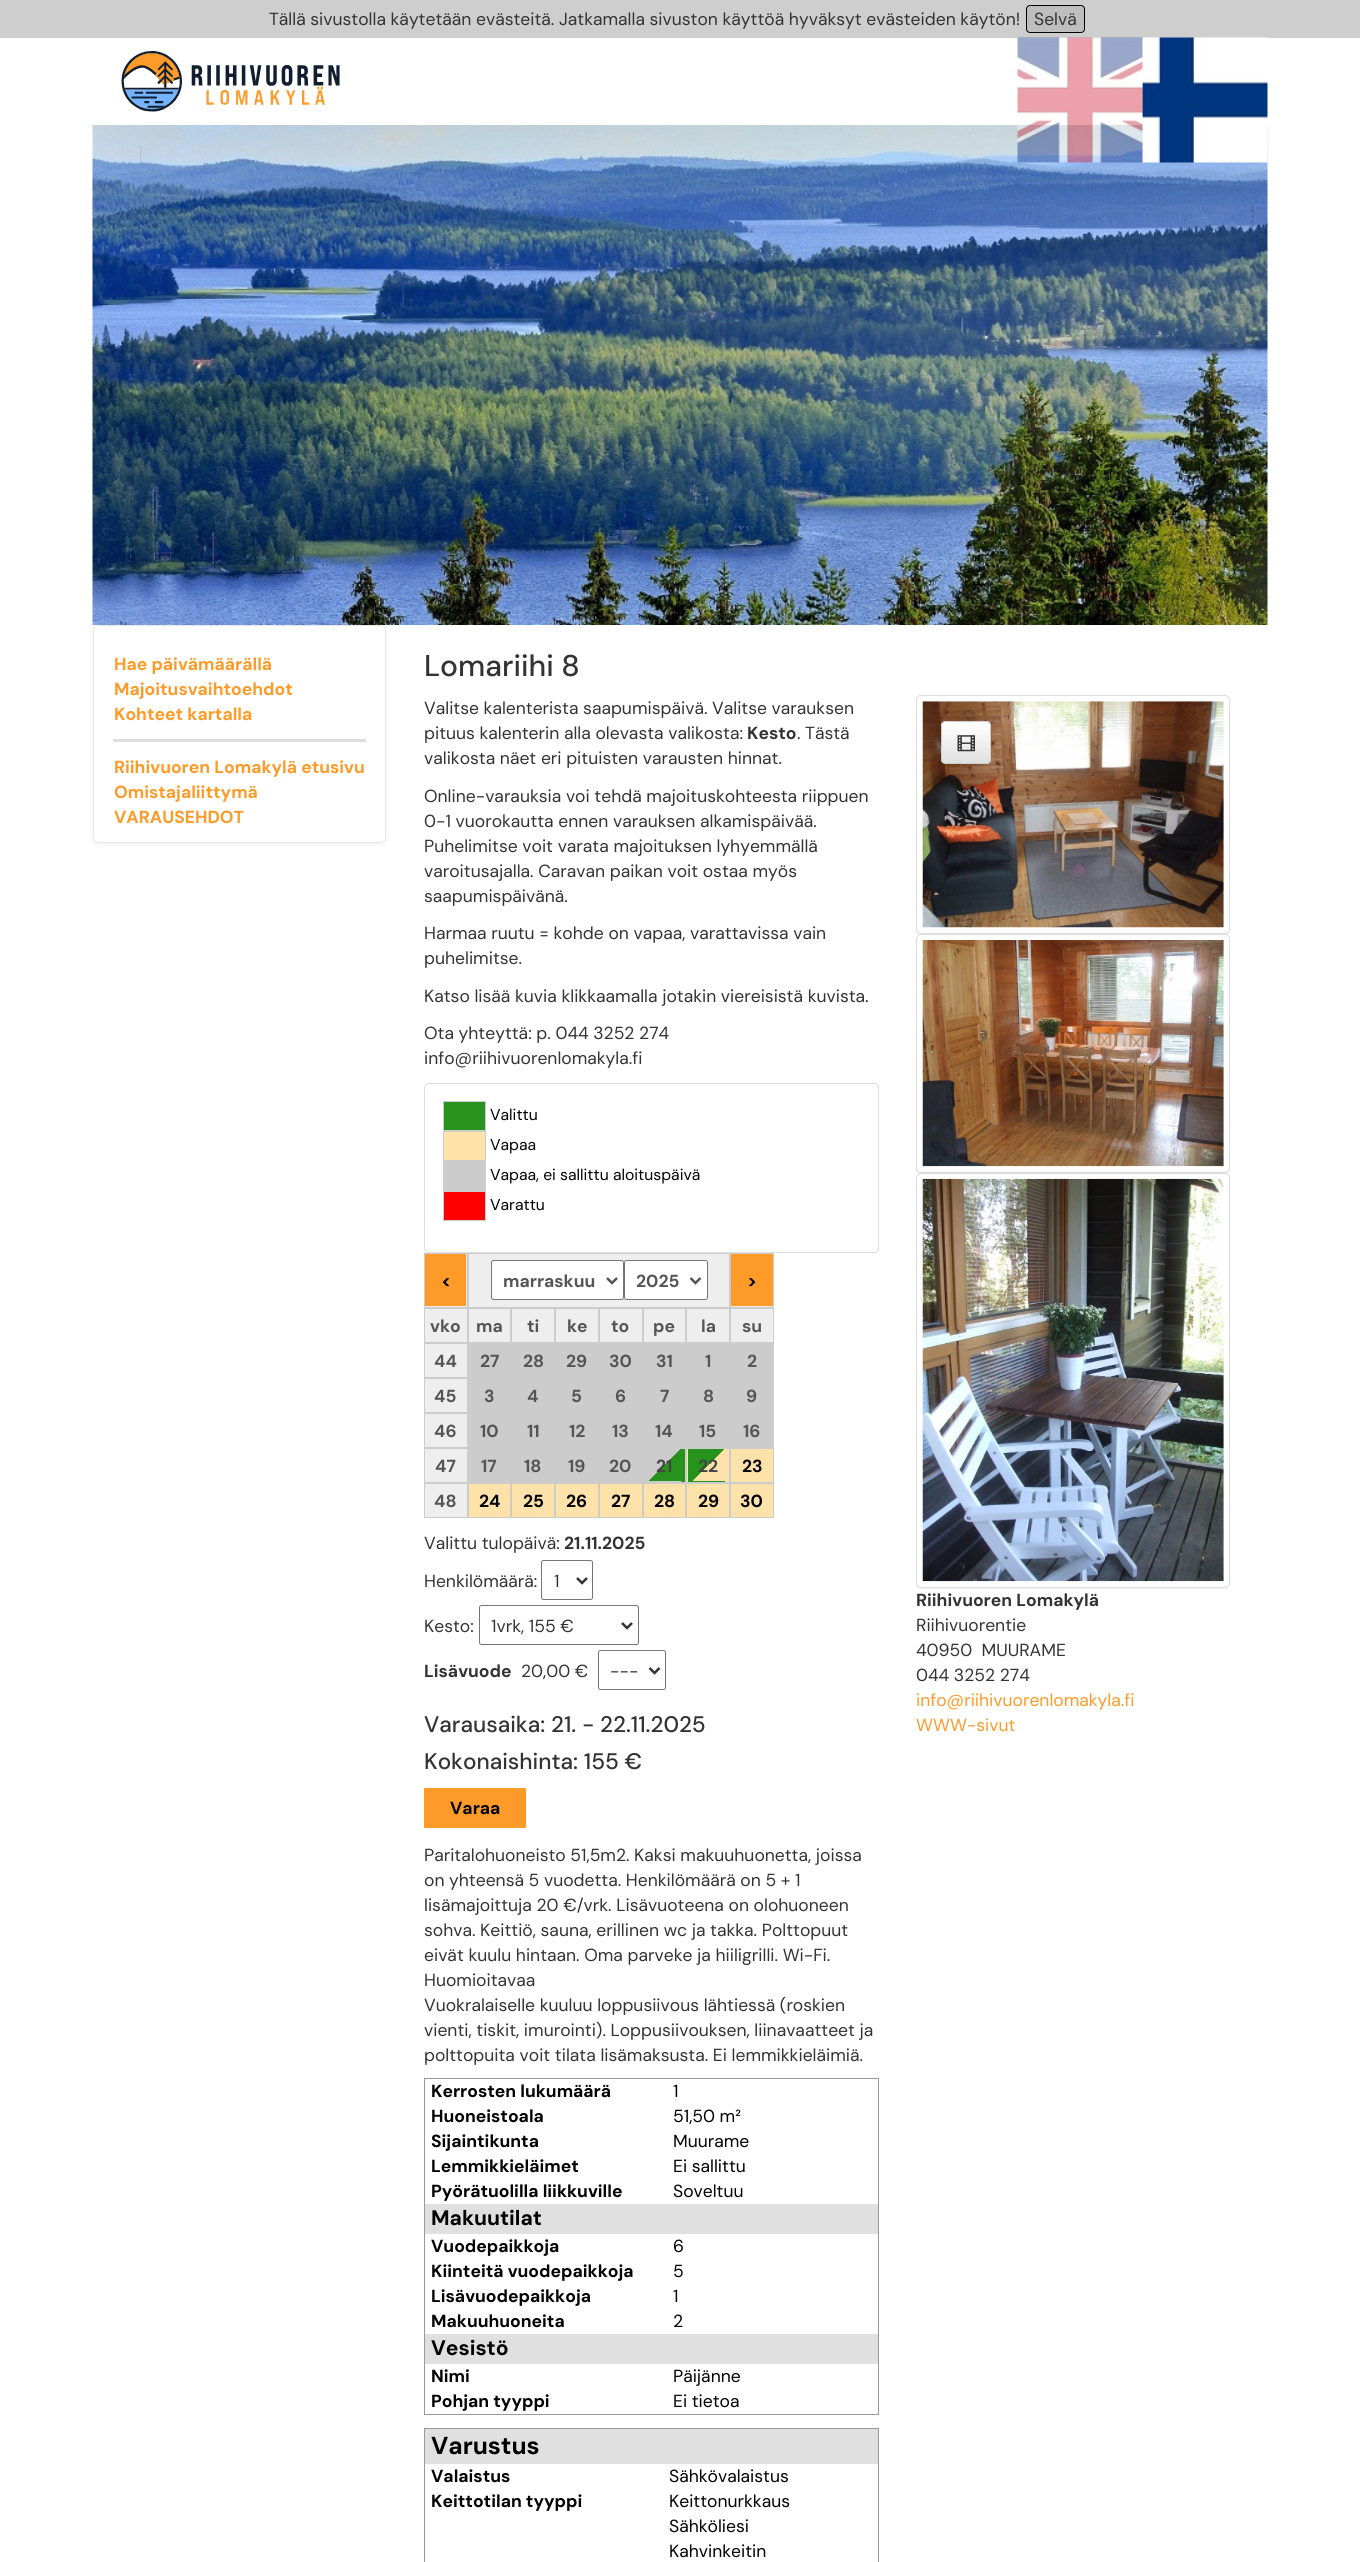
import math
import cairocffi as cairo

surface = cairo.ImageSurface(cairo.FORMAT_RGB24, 1360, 2562)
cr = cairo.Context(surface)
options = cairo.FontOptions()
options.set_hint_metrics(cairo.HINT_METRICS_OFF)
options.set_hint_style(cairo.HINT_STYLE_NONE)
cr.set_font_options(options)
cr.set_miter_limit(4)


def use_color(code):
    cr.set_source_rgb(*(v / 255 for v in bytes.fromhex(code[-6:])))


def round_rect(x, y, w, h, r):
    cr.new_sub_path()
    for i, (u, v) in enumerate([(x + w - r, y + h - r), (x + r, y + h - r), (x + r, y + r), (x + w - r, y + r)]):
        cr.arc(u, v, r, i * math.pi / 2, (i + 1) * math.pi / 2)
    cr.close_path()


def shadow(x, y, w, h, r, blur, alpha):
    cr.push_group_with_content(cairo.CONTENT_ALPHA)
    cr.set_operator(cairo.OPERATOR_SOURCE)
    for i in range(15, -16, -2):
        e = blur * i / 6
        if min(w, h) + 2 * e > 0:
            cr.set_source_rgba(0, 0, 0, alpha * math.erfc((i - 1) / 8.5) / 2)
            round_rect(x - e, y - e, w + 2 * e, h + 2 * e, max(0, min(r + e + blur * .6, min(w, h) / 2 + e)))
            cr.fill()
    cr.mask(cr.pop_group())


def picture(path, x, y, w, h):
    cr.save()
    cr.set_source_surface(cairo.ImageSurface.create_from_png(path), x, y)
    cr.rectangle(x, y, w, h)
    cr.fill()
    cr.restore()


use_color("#ffffff")
cr.paint()
use_color("#cecece")
cr.rectangle(0, 0, 1360, 38)
cr.fill()
cr.select_font_face("DM Sans")
cr.set_font_size(17.5)
use_color("#333333")
cr.move_to(269, 25)
cr.show_text("Tällä sivustolla käytetään evästeitä. Jatkamalla sivuston käyttöä hyväksyt evästeiden käytön!")
use_color("#bebebe")
round_rect(1026.5, 5.5, 58, 27, 3.5)
cr.fill_preserve()
use_color("#000000")
cr.set_line_width(1)
cr.stroke()
use_color("#333333")
cr.move_to(1034, 25)
cr.show_text("Selvä")
picture("img1.png", 92, 125, 1176, 500)
picture("img2.png", 121, 51, 219, 61)
picture("img4.png", 1142, 37, 126, 126)
picture("img3.png", 1017, 37, 126, 126)
cr.save()
cr.set_fill_rule(cairo.FILL_RULE_EVEN_ODD)
cr.new_path()
cr.move_to(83, 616)
cr.line_to(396, 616)
cr.line_to(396, 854)
cr.line_to(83, 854)
cr.close_path()
cr.move_to(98, 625)
cr.line_to(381, 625)
cr.curve_to(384, 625, 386, 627, 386, 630)
cr.line_to(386, 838)
cr.curve_to(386, 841, 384, 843, 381, 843)
cr.line_to(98, 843)
cr.curve_to(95, 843, 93, 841, 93, 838)
cr.line_to(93, 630)
cr.curve_to(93, 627, 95, 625, 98, 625)
cr.close_path()
cr.clip()
use_color("#000000")
shadow(93, 626, 293, 218, 5, 3, 0.07)
cr.restore()
round_rect(93.5, 625.5, 292, 217, 4.5)
use_color("#e7e7e7")
cr.stroke()
cr.select_font_face("DM Sans", cairo.FONT_SLANT_NORMAL, cairo.FONT_WEIGHT_BOLD)
use_color("#fd9a28")
cr.move_to(114, 670)
cr.show_text("Hae päivämäärällä")
cr.move_to(114, 695)
cr.show_text("Majoitusvaihtoehdot")
cr.move_to(114, 720)
cr.show_text("Kohteet kartalla")
use_color("#dddddd")
cr.rectangle(113, 739, 253, 3)
cr.fill()
use_color("#fd9a28")
cr.move_to(114, 773)
cr.show_text("Riihivuoren Lomakylä etusivu")
cr.move_to(114, 798)
cr.show_text("Omistajaliittymä")
cr.move_to(114, 823)
cr.show_text("VARAUSEHDOT")
cr.select_font_face("DM Sans Medium")
cr.set_font_size(30)
use_color("#333333")
cr.move_to(424, 676)
cr.show_text("Lomariihi 8")
cr.select_font_face("DM Sans")
cr.set_font_size(17.5)
cr.move_to(424, 714)
cr.show_text("Valitse kalenterista saapumispäivä. Valitse varauksen")
cr.move_to(424, 739)
cr.show_text("pituus kalenterin alla olevasta valikosta:")
cr.select_font_face("DM Sans", cairo.FONT_SLANT_NORMAL, cairo.FONT_WEIGHT_BOLD)
cr.move_to(747, 739)
cr.show_text("Kesto")
cr.select_font_face("DM Sans")
cr.move_to(797, 739)
cr.show_text(". Tästä")
cr.move_to(424, 764)
cr.show_text("valikosta näet eri pituisten varausten hinnat.")
cr.move_to(424, 802)
cr.show_text("Online-varauksia voi tehdä majoituskohteesta riippuen")
cr.move_to(424, 827)
cr.show_text("0-1 vuorokautta ennen varauksen alkamispäivää.")
cr.move_to(424, 852)
cr.show_text("Puhelimitse voit varata majoituksen lyhyemmällä")
cr.move_to(424, 877)
cr.show_text("varoitusajalla. Caravan paikan voit ostaa myös")
cr.move_to(424, 902)
cr.show_text("saapumispäivänä.")
cr.move_to(424, 939)
cr.show_text("Harmaa ruutu = kohde on vapaa, varattavissa vain")
cr.move_to(424, 964)
cr.show_text("puhelimitse.")
cr.move_to(424, 1002)
cr.show_text("Katso lisää kuvia klikkaamalla jotakin viereisistä kuvista.")
cr.move_to(424, 1039)
cr.show_text("Ota yhteyttä: p. 044 3252 274")
cr.move_to(424, 1064)
cr.show_text("info@riihivuorenlomakyla.fi")
round_rect(424.5, 1083.5, 454, 169, 4.5)
use_color("#dddddd")
cr.stroke()
use_color("#27921c")
cr.rectangle(443.5, 1101.5, 42, 29)
cr.fill_preserve()
use_color("#cccccc")
cr.stroke()
cr.set_font_size(15.75)
use_color("#000000")
cr.move_to(490, 1120)
cr.show_text("Valittu")
use_color("#fee2aa")
cr.rectangle(443.5, 1131.5, 42, 29)
cr.fill_preserve()
use_color("#cccccc")
cr.stroke()
use_color("#000000")
cr.move_to(490, 1150)
cr.show_text("Vapaa")
use_color("#cccccc")
cr.rectangle(443, 1161, 43, 30)
cr.fill()
use_color("#000000")
cr.move_to(490, 1180)
cr.show_text("Vapaa, ei sallittu aloituspäivä")
use_color("#ff0000")
cr.rectangle(443.5, 1191.5, 42, 29)
cr.fill_preserve()
use_color("#cccccc")
cr.stroke()
use_color("#000000")
cr.move_to(490, 1210)
cr.show_text("Varattu")
use_color("#eeeeee")
cr.rectangle(424.5, 1253.5, 43, 54)
cr.fill_preserve()
use_color("#cccccc")
cr.stroke()
use_color("#fd9a28")
cr.rectangle(425, 1254, 41, 52)
cr.fill()
cr.select_font_face("DM Sans", cairo.FONT_SLANT_NORMAL, cairo.FONT_WEIGHT_BOLD)
cr.set_font_size(17.5)
use_color("#000000")
cr.move_to(441, 1287)
cr.show_text("<")
use_color("#eeeeee")
cr.rectangle(468.5, 1253.5, 261, 54)
cr.fill_preserve()
use_color("#cccccc")
cr.stroke()
use_color("#ffffff")
round_rect(491.5, 1260.5, 132, 39, 2)
cr.fill_preserve()
use_color("#767676")
cr.stroke()
cr.new_path()
cr.move_to(607, 1278)
cr.line_to(612, 1283)
cr.line_to(617, 1278)
use_color("#555555")
cr.set_line_width(2.5)
cr.stroke()
cr.move_to(503, 1287)
cr.show_text("marraskuu")
use_color("#ffffff")
round_rect(624.5, 1260.5, 83, 39, 2)
cr.fill_preserve()
use_color("#767676")
cr.set_line_width(1)
cr.stroke()
cr.new_path()
cr.move_to(690.5, 1278)
cr.line_to(695.5, 1283)
cr.line_to(700.5, 1278)
use_color("#555555")
cr.set_line_width(2.5)
cr.stroke()
cr.move_to(636, 1287)
cr.show_text("2025")
use_color("#eeeeee")
cr.rectangle(731, 1306, 42, 1)
cr.fill()
cr.rectangle(730.5, 1253.5, 43, 54)
use_color("#cccccc")
cr.set_line_width(1)
cr.stroke()
use_color("#fd9a28")
cr.rectangle(731, 1254, 42, 52)
cr.fill()
use_color("#000000")
cr.move_to(747, 1287)
cr.show_text(">")
use_color("#eeeeee")
cr.rectangle(424.5, 1308.5, 43, 34)
cr.fill_preserve()
use_color("#cccccc")
cr.stroke()
use_color("#555555")
cr.move_to(430, 1332)
cr.show_text("vko")
use_color("#eeeeee")
cr.rectangle(468.5, 1308.5, 42, 34)
cr.fill_preserve()
use_color("#cccccc")
cr.stroke()
use_color("#555555")
cr.move_to(476, 1332)
cr.show_text("ma")
use_color("#eeeeee")
cr.rectangle(511.5, 1308.5, 43, 34)
cr.fill_preserve()
use_color("#cccccc")
cr.stroke()
use_color("#555555")
cr.move_to(527, 1332)
cr.show_text("ti")
use_color("#eeeeee")
cr.rectangle(555.5, 1308.5, 43, 34)
cr.fill_preserve()
use_color("#cccccc")
cr.stroke()
use_color("#555555")
cr.move_to(567, 1332)
cr.show_text("ke")
use_color("#eeeeee")
cr.rectangle(599.5, 1308.5, 43, 34)
cr.fill_preserve()
use_color("#cccccc")
cr.stroke()
use_color("#555555")
cr.move_to(611, 1332)
cr.show_text("to")
use_color("#eeeeee")
cr.rectangle(643.5, 1308.5, 42, 34)
cr.fill_preserve()
use_color("#cccccc")
cr.stroke()
use_color("#555555")
cr.move_to(653, 1332)
cr.show_text("pe")
use_color("#eeeeee")
cr.rectangle(686.5, 1308.5, 43, 34)
cr.fill_preserve()
use_color("#cccccc")
cr.stroke()
use_color("#555555")
cr.move_to(701, 1332)
cr.show_text("la")
use_color("#eeeeee")
cr.rectangle(730.5, 1308.5, 43, 34)
cr.fill_preserve()
use_color("#cccccc")
cr.stroke()
use_color("#555555")
cr.move_to(742, 1332)
cr.show_text("su")
use_color("#eeeeee")
cr.rectangle(424.5, 1343.5, 43, 34)
cr.fill_preserve()
use_color("#cccccc")
cr.stroke()
use_color("#555555")
cr.move_to(434, 1367)
cr.show_text("44")
use_color("#cccccc")
cr.rectangle(468, 1343, 306, 35)
cr.fill()
use_color("#555555")
cr.move_to(480, 1367)
cr.show_text("27")
cr.move_to(523, 1367)
cr.show_text("28")
cr.move_to(566, 1367)
cr.show_text("29")
cr.move_to(609, 1367)
cr.show_text("30")
cr.move_to(656, 1367)
cr.show_text("31")
cr.move_to(705, 1367)
cr.show_text("1")
cr.move_to(747, 1367)
cr.show_text("2")
use_color("#eeeeee")
cr.rectangle(424.5, 1378.5, 43, 34)
cr.fill_preserve()
use_color("#cccccc")
cr.stroke()
use_color("#555555")
cr.move_to(434, 1402)
cr.show_text("45")
use_color("#cccccc")
cr.rectangle(468, 1378, 306, 35)
cr.fill()
use_color("#555555")
cr.move_to(484, 1402)
cr.show_text("3")
cr.move_to(527, 1402)
cr.show_text("4")
cr.move_to(571, 1402)
cr.show_text("5")
cr.move_to(615, 1402)
cr.show_text("6")
cr.move_to(660, 1402)
cr.show_text("7")
cr.move_to(703, 1402)
cr.show_text("8")
cr.move_to(746, 1402)
cr.show_text("9")
use_color("#eeeeee")
cr.rectangle(424.5, 1413.5, 43, 34)
cr.fill_preserve()
use_color("#cccccc")
cr.stroke()
use_color("#555555")
cr.move_to(434, 1437)
cr.show_text("46")
use_color("#cccccc")
cr.rectangle(468, 1413, 306, 35)
cr.fill()
use_color("#555555")
cr.move_to(480, 1437)
cr.show_text("10")
cr.move_to(527, 1437)
cr.show_text("11")
cr.move_to(569, 1437)
cr.show_text("12")
cr.move_to(612, 1437)
cr.show_text("13")
cr.move_to(655, 1437)
cr.show_text("14")
cr.move_to(699, 1437)
cr.show_text("15")
cr.move_to(743, 1437)
cr.show_text("16")
use_color("#eeeeee")
cr.rectangle(424.5, 1448.5, 43, 34)
cr.fill_preserve()
use_color("#cccccc")
cr.stroke()
use_color("#555555")
cr.move_to(435, 1472)
cr.show_text("47")
use_color("#cccccc")
cr.rectangle(468, 1448, 175, 35)
cr.fill()
use_color("#555555")
cr.move_to(481, 1472)
cr.show_text("17")
cr.move_to(524, 1472)
cr.show_text("18")
cr.move_to(568, 1472)
cr.show_text("19")
cr.move_to(609, 1472)
cr.show_text("20")
gradient = cairo.LinearGradient(646, 1447, 683, 1483)
gradient.add_color_stop_rgba(0.5, 0.8, 0.8, 0.8, 1)
gradient.add_color_stop_rgba(0.5, 0.153, 0.573, 0.11, 1)
cr.set_source(gradient)
cr.rectangle(644, 1449, 41, 32)
cr.fill()
gradient = cairo.LinearGradient(646, 1479, 683, 1516)
gradient.add_color_stop_rgba(0.5, 0.8, 0.8, 0.8, 1)
gradient.add_color_stop_rgba(0.5, 0.153, 0.573, 0.11, 1)
cr.set_source(gradient)
cr.rectangle(644, 1481, 41, 1)
cr.fill()
cr.rectangle(643.5, 1448.5, 42, 34)
use_color("#cccccc")
cr.stroke()
use_color("#444444")
cr.move_to(656, 1472)
cr.show_text("21")
gradient = cairo.LinearGradient(648, 1447, 685, 1483)
gradient.add_color_stop_rgba(0.5, 0.153, 0.573, 0.11, 1)
gradient.add_color_stop_rgba(0.5, 0.996, 0.886, 0.667, 1)
cr.set_source(gradient)
cr.rectangle(687, 1449, 1, 32)
cr.fill()
gradient = cairo.LinearGradient(690, 1447, 727, 1483)
gradient.add_color_stop_rgba(0.5, 0.153, 0.573, 0.11, 1)
gradient.add_color_stop_rgba(0.5, 0.996, 0.886, 0.667, 1)
cr.set_source(gradient)
cr.rectangle(688, 1449, 41, 32)
cr.fill()
gradient = cairo.LinearGradient(648, 1479, 685, 1516)
gradient.add_color_stop_rgba(0.5, 0.153, 0.573, 0.11, 1)
gradient.add_color_stop_rgba(0.5, 0.996, 0.886, 0.667, 1)
cr.set_source(gradient)
cr.rectangle(686, 1481, 2, 1)
cr.fill()
gradient = cairo.LinearGradient(690, 1479, 727, 1516)
gradient.add_color_stop_rgba(0.5, 0.153, 0.573, 0.11, 1)
gradient.add_color_stop_rgba(0.5, 0.996, 0.886, 0.667, 1)
cr.set_source(gradient)
cr.rectangle(688, 1481, 41, 1)
cr.fill()
cr.rectangle(686.5, 1448.5, 43, 34)
use_color("#cccccc")
cr.stroke()
use_color("#444444")
cr.move_to(698, 1472)
cr.show_text("22")
use_color("#fee2aa")
cr.rectangle(730.5, 1448.5, 43, 34)
cr.fill_preserve()
use_color("#cccccc")
cr.stroke()
use_color("#000000")
cr.move_to(742, 1472)
cr.show_text("23")
use_color("#eeeeee")
cr.rectangle(424.5, 1483.5, 43, 34)
cr.fill_preserve()
use_color("#cccccc")
cr.stroke()
use_color("#555555")
cr.move_to(434, 1507)
cr.show_text("48")
use_color("#fee2aa")
cr.rectangle(468.5, 1483.5, 42, 34)
cr.fill_preserve()
use_color("#cccccc")
cr.stroke()
use_color("#000000")
cr.move_to(479, 1507)
cr.show_text("24")
use_color("#fee2aa")
cr.rectangle(511.5, 1483.5, 43, 34)
cr.fill_preserve()
use_color("#cccccc")
cr.stroke()
use_color("#000000")
cr.move_to(523, 1507)
cr.show_text("25")
use_color("#fee2aa")
cr.rectangle(555.5, 1483.5, 43, 34)
cr.fill_preserve()
use_color("#cccccc")
cr.stroke()
use_color("#000000")
cr.move_to(566, 1507)
cr.show_text("26")
use_color("#fee2aa")
cr.rectangle(599.5, 1483.5, 43, 34)
cr.fill_preserve()
use_color("#cccccc")
cr.stroke()
use_color("#000000")
cr.move_to(611, 1507)
cr.show_text("27")
use_color("#fee2aa")
cr.rectangle(643.5, 1483.5, 42, 34)
cr.fill_preserve()
use_color("#cccccc")
cr.stroke()
use_color("#000000")
cr.move_to(654, 1507)
cr.show_text("28")
use_color("#fee2aa")
cr.rectangle(686.5, 1483.5, 43, 34)
cr.fill_preserve()
use_color("#cccccc")
cr.stroke()
use_color("#000000")
cr.move_to(698, 1507)
cr.show_text("29")
use_color("#fee2aa")
cr.rectangle(730.5, 1483.5, 43, 34)
cr.fill_preserve()
use_color("#cccccc")
cr.stroke()
use_color("#000000")
cr.move_to(740, 1507)
cr.show_text("30")
cr.select_font_face("DM Sans")
use_color("#333333")
cr.move_to(424, 1549)
cr.show_text("Valittu tulopäivä:")
cr.select_font_face("DM Sans", cairo.FONT_SLANT_NORMAL, cairo.FONT_WEIGHT_BOLD)
cr.move_to(564, 1549)
cr.show_text("21.11.2025")
cr.select_font_face("DM Sans")
cr.move_to(424, 1587)
cr.show_text("Henkilömäärä:")
round_rect(541.5, 1560.5, 51, 39, 2)
use_color("#767676")
cr.stroke()
cr.new_path()
cr.move_to(577, 1578)
cr.line_to(582, 1583)
cr.line_to(587, 1578)
use_color("#333333")
cr.set_line_width(2.5)
cr.stroke()
cr.move_to(554, 1587)
cr.show_text("1")
cr.move_to(424, 1632)
cr.show_text("Kesto:")
round_rect(479.5, 1605.5, 159, 39, 2)
use_color("#767676")
cr.set_line_width(1)
cr.stroke()
cr.new_path()
cr.move_to(622, 1623)
cr.line_to(627, 1628)
cr.line_to(632, 1623)
use_color("#333333")
cr.set_line_width(2.5)
cr.stroke()
cr.move_to(491, 1632)
cr.show_text("1vrk, 155 €")
cr.select_font_face("DM Sans", cairo.FONT_SLANT_NORMAL, cairo.FONT_WEIGHT_BOLD)
cr.move_to(424, 1677)
cr.show_text("Lisävuode")
cr.select_font_face("DM Sans")
cr.move_to(521, 1677)
cr.show_text("20,00 €")
round_rect(598.5, 1650.5, 67, 39, 2)
use_color("#767676")
cr.set_line_width(1)
cr.stroke()
cr.new_path()
cr.move_to(649.5, 1668)
cr.line_to(654.5, 1673)
cr.line_to(659.5, 1668)
use_color("#333333")
cr.set_line_width(2.5)
cr.stroke()
cr.move_to(610, 1677)
cr.show_text("---")
cr.select_font_face("DM Sans Medium")
cr.set_font_size(22.5)
cr.move_to(424, 1732)
cr.show_text("Varausaika: 21. - 22.11.2025")
cr.move_to(424, 1769)
cr.show_text("Kokonaishinta: 155 €")
use_color("#fd9a28")
cr.rectangle(424, 1788, 102, 40)
cr.fill()
cr.select_font_face("DM Sans", cairo.FONT_SLANT_NORMAL, cairo.FONT_WEIGHT_BOLD)
cr.set_font_size(17.5)
use_color("#000000")
cr.move_to(450, 1814)
cr.show_text("Varaa")
cr.select_font_face("DM Sans")
use_color("#333333")
cr.move_to(424, 1861)
cr.show_text("Paritalohuoneisto 51,5m2. Kaksi makuuhuonetta, joissa")
cr.move_to(424, 1886)
cr.show_text("on yhteensä 5 vuodetta. Henkilömäärä on 5 + 1")
cr.move_to(424, 1911)
cr.show_text("lisämajoittuja 20 €/vrk. Lisävuoteena on olohuoneen")
cr.move_to(424, 1936)
cr.show_text("sohva. Keittiö, sauna, erillinen wc ja takka. Polttopuut")
cr.move_to(424, 1961)
cr.show_text("eivät kuulu hintaan. Oma parveke ja hiiligrilli. Wi-Fi.")
cr.move_to(424, 1986)
cr.show_text("Huomioitavaa")
cr.move_to(424, 2011)
cr.show_text("Vuokralaiselle kuuluu loppusiivous lähtiessä (roskien")
cr.move_to(424, 2036)
cr.show_text("vienti, tiskit, imurointi). Loppusiivouksen, liinavaatteet ja")
cr.move_to(424, 2061)
cr.show_text("polttopuita voit tilata lisämaksusta. Ei lemmikkieläimiä.")
use_color("#9a9998")
cr.rectangle(424, 2078, 455, 1)
cr.fill()
cr.rectangle(878, 2078, 1, 337)
cr.fill()
cr.rectangle(424, 2414, 455, 1)
cr.fill()
cr.rectangle(424, 2078, 1, 337)
cr.fill()
cr.select_font_face("DM Sans", cairo.FONT_SLANT_NORMAL, cairo.FONT_WEIGHT_BOLD)
use_color("#000000")
cr.move_to(431, 2097)
cr.show_text("Kerrosten lukumäärä")
cr.select_font_face("DM Sans")
cr.move_to(673, 2097)
cr.show_text("1")
cr.select_font_face("DM Sans", cairo.FONT_SLANT_NORMAL, cairo.FONT_WEIGHT_BOLD)
cr.move_to(431, 2122)
cr.show_text("Huoneistoala")
cr.select_font_face("DM Sans")
cr.move_to(673, 2122)
cr.show_text("51,50 m²")
cr.select_font_face("DM Sans", cairo.FONT_SLANT_NORMAL, cairo.FONT_WEIGHT_BOLD)
cr.move_to(431, 2147)
cr.show_text("Sijaintikunta")
cr.select_font_face("DM Sans")
cr.move_to(673, 2147)
cr.show_text("Muurame")
cr.select_font_face("DM Sans", cairo.FONT_SLANT_NORMAL, cairo.FONT_WEIGHT_BOLD)
cr.move_to(431, 2172)
cr.show_text("Lemmikkieläimet")
cr.select_font_face("DM Sans")
cr.move_to(673, 2172)
cr.show_text("Ei sallittu")
cr.select_font_face("DM Sans", cairo.FONT_SLANT_NORMAL, cairo.FONT_WEIGHT_BOLD)
cr.move_to(431, 2197)
cr.show_text("Pyörätuolilla liikkuville")
cr.select_font_face("DM Sans")
cr.move_to(673, 2197)
cr.show_text("Soveltuu")
use_color("#e0e0e0")
cr.rectangle(425, 2204, 453, 30)
cr.fill()
cr.select_font_face("DM Sans", cairo.FONT_SLANT_NORMAL, cairo.FONT_WEIGHT_BOLD)
cr.set_font_size(21)
use_color("#000000")
cr.move_to(431, 2225)
cr.show_text("Makuutilat")
cr.set_font_size(17.5)
cr.move_to(431, 2252)
cr.show_text("Vuodepaikkoja")
cr.select_font_face("DM Sans")
cr.move_to(673, 2252)
cr.show_text("6")
cr.select_font_face("DM Sans", cairo.FONT_SLANT_NORMAL, cairo.FONT_WEIGHT_BOLD)
cr.move_to(431, 2277)
cr.show_text("Kiinteitä vuodepaikkoja")
cr.select_font_face("DM Sans")
cr.move_to(673, 2277)
cr.show_text("5")
cr.select_font_face("DM Sans", cairo.FONT_SLANT_NORMAL, cairo.FONT_WEIGHT_BOLD)
cr.move_to(431, 2302)
cr.show_text("Lisävuodepaikkoja")
cr.select_font_face("DM Sans")
cr.move_to(673, 2302)
cr.show_text("1")
cr.select_font_face("DM Sans", cairo.FONT_SLANT_NORMAL, cairo.FONT_WEIGHT_BOLD)
cr.move_to(431, 2327)
cr.show_text("Makuuhuoneita")
cr.select_font_face("DM Sans")
cr.move_to(673, 2327)
cr.show_text("2")
use_color("#e0e0e0")
cr.rectangle(425, 2334, 453, 30)
cr.fill()
cr.select_font_face("DM Sans", cairo.FONT_SLANT_NORMAL, cairo.FONT_WEIGHT_BOLD)
cr.set_font_size(21)
use_color("#000000")
cr.move_to(431, 2355)
cr.show_text("Vesistö")
cr.set_font_size(17.5)
cr.move_to(431, 2382)
cr.show_text("Nimi")
cr.select_font_face("DM Sans")
cr.move_to(673, 2382)
cr.show_text("Päijänne")
cr.select_font_face("DM Sans", cairo.FONT_SLANT_NORMAL, cairo.FONT_WEIGHT_BOLD)
cr.move_to(431, 2407)
cr.show_text("Pohjan tyyppi")
cr.select_font_face("DM Sans")
cr.move_to(673, 2407)
cr.show_text("Ei tietoa")
use_color("#9a9998")
cr.rectangle(424, 2428, 455, 1)
cr.fill()
cr.rectangle(878, 2428, 1, 134)
cr.fill()
cr.rectangle(424, 2428, 1, 134)
cr.fill()
use_color("#e0e0e0")
cr.rectangle(425, 2429, 453, 35)
cr.fill()
cr.select_font_face("DM Sans", cairo.FONT_SLANT_NORMAL, cairo.FONT_WEIGHT_BOLD)
cr.set_font_size(24.5)
use_color("#000000")
cr.move_to(431, 2454)
cr.show_text("Varustus")
cr.set_font_size(17.5)
cr.move_to(431, 2482)
cr.show_text("Valaistus")
cr.select_font_face("DM Sans")
cr.move_to(669, 2482)
cr.show_text("Sähkövalaistus")
cr.select_font_face("DM Sans", cairo.FONT_SLANT_NORMAL, cairo.FONT_WEIGHT_BOLD)
cr.move_to(431, 2507)
cr.show_text("Keittotilan tyyppi")
cr.select_font_face("DM Sans")
cr.move_to(669, 2507)
cr.show_text("Keittonurkkaus")
cr.move_to(669, 2532)
cr.show_text("Sähköliesi")
cr.move_to(669, 2557)
cr.show_text("Kahvinkeitin")
use_color("#000000")
shadow(916, 696, 314, 239, 5, 1, 0.07)
use_color("#ffffff")
round_rect(916.5, 695.5, 313, 238, 4.5)
cr.fill_preserve()
use_color("#dddddd")
cr.set_line_width(1)
cr.stroke()
picture("img5.png", 922, 701, 302, 227)
use_color("#000000")
shadow(941, 723, 50, 42, 5, 0.5, 0.07)
use_color("#ffffff")
round_rect(941, 721, 50, 43, 5)
cr.fill()
cr.save()
round_rect(941, 721, 50, 43, 5)
cr.clip()
gradient = cairo.LinearGradient(966, 723, 966, 763)
gradient.add_color_stop_rgba(0, 1, 1, 1, 1)
gradient.add_color_stop_rgba(1, 0.878, 0.878, 0.878, 1)
cr.set_source(gradient)
cr.rectangle(941, 723, 50, 40)
cr.fill()
cr.restore()
round_rect(941.5, 721.5, 49, 42, 4.5)
use_color("#cccccc")
cr.stroke()
picture("img6.png", 957, 735, 18, 17)
use_color("#000000")
shadow(916, 935, 314, 239, 5, 1, 0.07)
use_color("#ffffff")
round_rect(916.5, 934.5, 313, 238, 4.5)
cr.fill_preserve()
use_color("#dddddd")
cr.stroke()
picture("img7.png", 922, 940, 302, 227)
use_color("#000000")
shadow(916, 1174, 314, 415, 5, 1, 0.07)
use_color("#ffffff")
round_rect(916.5, 1173.5, 313, 414, 4.5)
cr.fill_preserve()
use_color("#dddddd")
cr.stroke()
picture("img8.png", 922, 1178, 302, 404)
cr.select_font_face("DM Sans", cairo.FONT_SLANT_NORMAL, cairo.FONT_WEIGHT_BOLD)
use_color("#333333")
cr.move_to(916, 1606)
cr.show_text("Riihivuoren Lomakylä")
cr.select_font_face("DM Sans")
cr.move_to(916, 1631)
cr.show_text("Riihivuorentie")
cr.move_to(916, 1656)
cr.show_text("40950  MUURAME")
cr.move_to(916, 1681)
cr.show_text("044 3252 274")
use_color("#fd9a28")
cr.move_to(916, 1706)
cr.show_text("info@riihivuorenlomakyla.fi")
cr.move_to(916, 1731)
cr.show_text("WWW-sivut")
surface.write_to_png("result.png")
